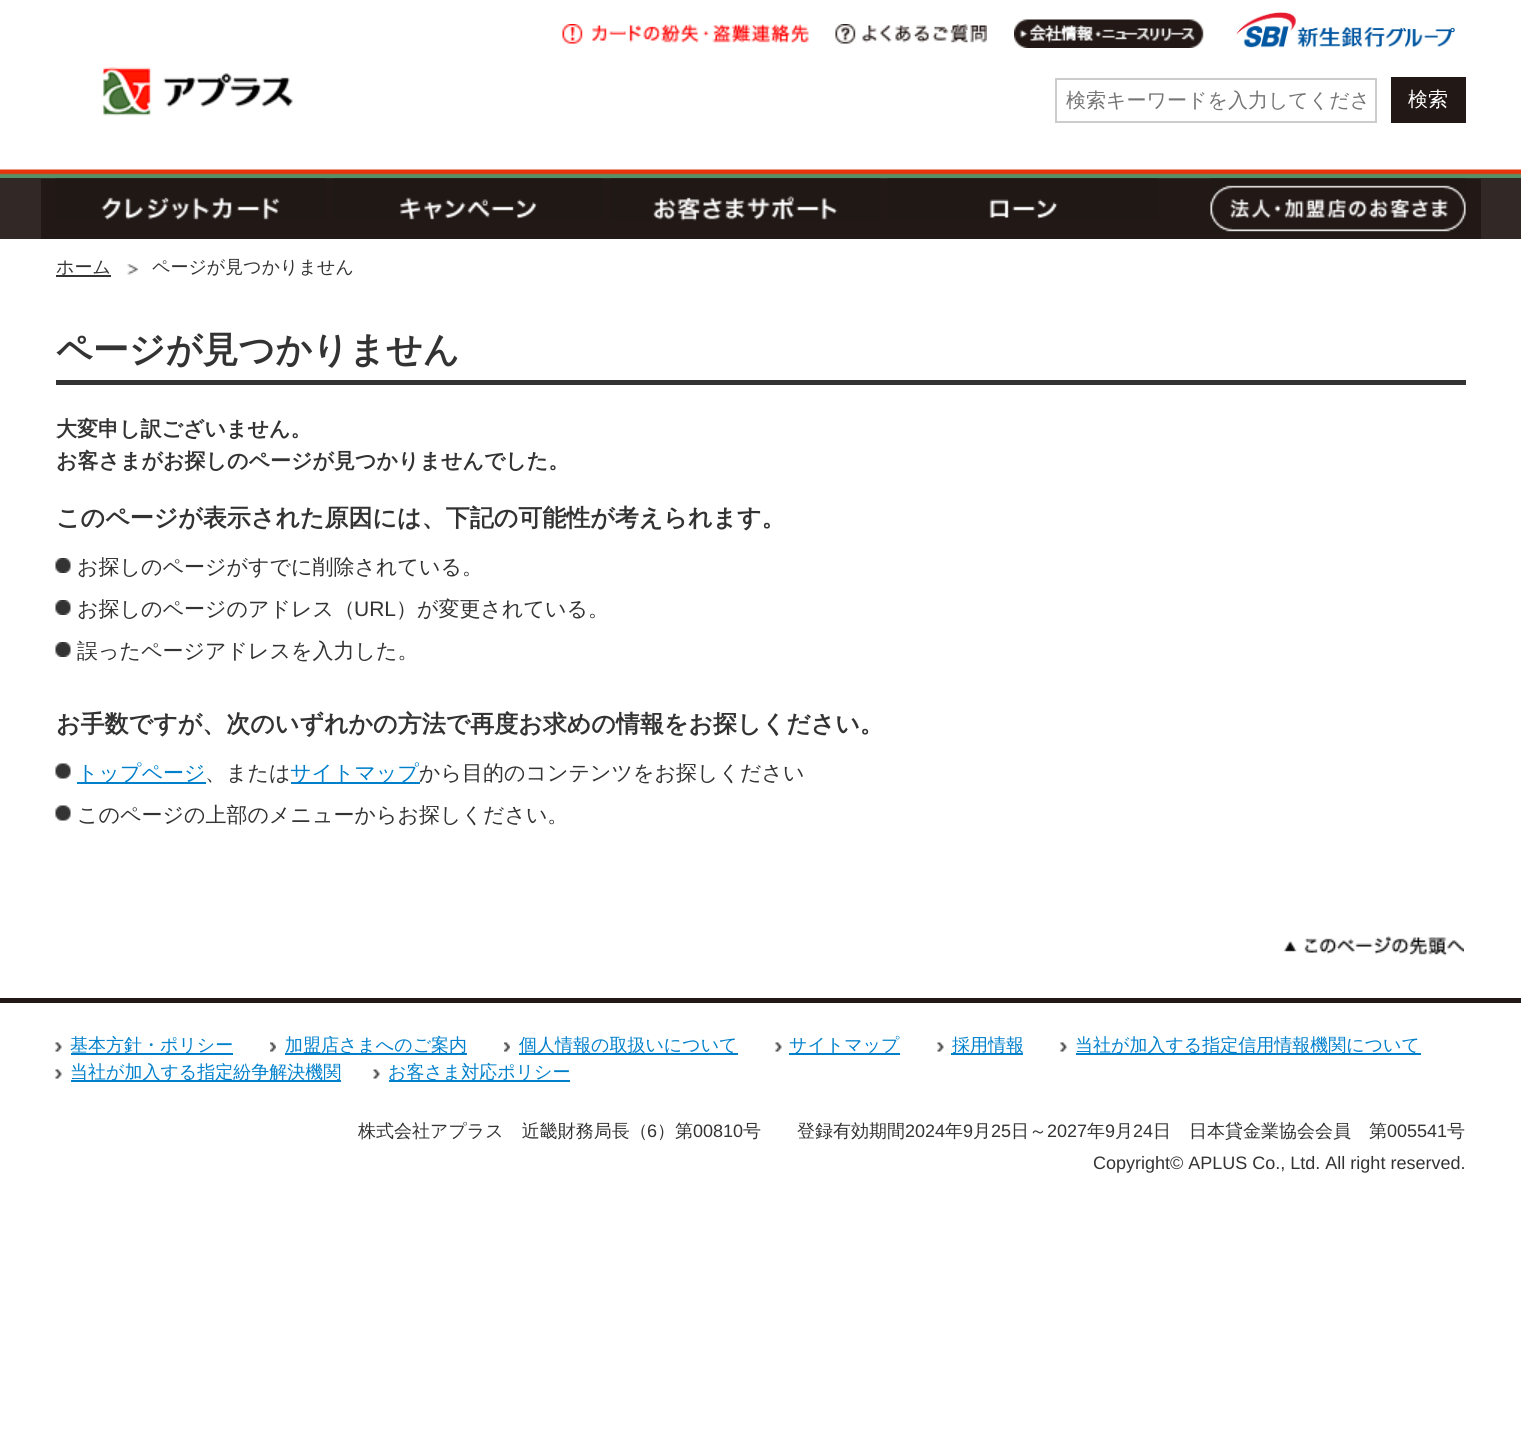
import math
import cairocffi as cairo

surface = cairo.ImageSurface(cairo.FORMAT_RGB24, 1521, 1440)
cr = cairo.Context(surface)
options = cairo.FontOptions()
options.set_hint_metrics(cairo.HINT_METRICS_OFF)
options.set_hint_style(cairo.HINT_STYLE_NONE)
cr.set_font_options(options)
cr.set_miter_limit(4)


def use_color(code):
    cr.set_source_rgb(*(v / 255 for v in bytes.fromhex(code[-6:])))


def picture(path, x, y, w, h):
    cr.save()
    cr.set_source_surface(cairo.ImageSurface.create_from_png(path), x, y)
    cr.rectangle(x, y, w, h)
    cr.fill()
    cr.restore()


use_color("#ffffff")
cr.paint()
picture("img1.png", 0, 169, 1521, 9)
picture("img2.png", 562, 24, 247, 20)
picture("img3.png", 835, 24, 152, 20)
picture("img4.png", 1014, 19, 190, 29)
picture("img5.png", 1236, 12, 219, 36)
picture("img6.png", 102, 67, 191, 49)
cr.rectangle(1056, 79, 320, 43)
use_color("#cccccc")
cr.stroke()
cr.select_font_face("WenQuanYi Zen Hei Medium")
cr.set_font_size(20)
use_color("#757575")
cr.move_to(1066, 107)
cr.show_text("検索キーワードを入力してくださ")
use_color("#221815")
cr.rectangle(1391, 77, 75, 46)
cr.fill()
use_color("#ffffff")
cr.move_to(1408, 106)
cr.show_text("検索")
use_color("#322826")
cr.rectangle(0, 178, 1521, 61)
cr.fill()
use_color("#221815")
cr.rectangle(41, 179, 1440, 60)
cr.fill()
picture("img7.png", 55, 178, 271, 42)
picture("img8.png", 333, 178, 270, 42)
picture("img9.png", 610, 178, 271, 43)
picture("img10.png", 888, 178, 270, 41)
picture("img11.png", 1210, 178, 256, 54)
cr.set_font_size(18)
use_color("#333333")
cr.move_to(56, 273)
cr.show_text("ホーム")
cr.rectangle(56, 275, 55, 2)
cr.fill()
picture("img12.png", 127, 264, 11, 11)
cr.move_to(152, 273)
cr.show_text("ページが見つかりません")
cr.rectangle(56, 380, 1410, 5)
cr.fill()
cr.select_font_face("WenQuanYi Zen Hei", cairo.FONT_SLANT_NORMAL, cairo.FONT_WEIGHT_BOLD)
cr.set_font_size(36)
cr.move_to(56, 362)
cr.show_text("ページが見つかりません")
cr.set_font_size(21)
cr.move_to(56, 436)
cr.show_text("大変申し訳ございません。")
cr.move_to(56, 468)
cr.show_text("お客さまがお探しのページが見つかりませんでした。")
cr.set_font_size(24)
cr.move_to(56, 526)
cr.show_text("このページが表示された原因には、下記の可能性が考えられます。")
picture("img13.png", 55, 558, 16, 15)
cr.select_font_face("WenQuanYi Zen Hei Medium")
cr.set_font_size(21)
cr.move_to(77, 574)
cr.show_text("お探しのページがすでに削除されている。")
picture("img13.png", 55, 600, 16, 15)
cr.move_to(77, 616)
cr.show_text("お探しのページのアドレス（")
cr.select_font_face("Liberation Sans")
cr.move_to(354, 616)
cr.show_text("URL")
cr.select_font_face("WenQuanYi Zen Hei Medium")
cr.move_to(396, 616)
cr.show_text("）が変更されている。")
picture("img13.png", 55, 642, 16, 15)
cr.move_to(77, 658)
cr.show_text("誤ったページアドレスを入力した。")
cr.select_font_face("WenQuanYi Zen Hei", cairo.FONT_SLANT_NORMAL, cairo.FONT_WEIGHT_BOLD)
cr.set_font_size(24)
cr.move_to(56, 732)
cr.show_text("お手数ですが、次のいずれかの方法で再度お求めの情報をお探しください。")
picture("img14.png", 55, 763, 16, 16)
use_color("#007fcb")
cr.rectangle(77, 782, 129, 2)
cr.fill()
cr.select_font_face("WenQuanYi Zen Hei Medium")
cr.set_font_size(21)
cr.move_to(77, 780)
cr.show_text("トップページ")
use_color("#333333")
cr.move_to(205, 780)
cr.show_text("、または")
use_color("#007fcb")
cr.rectangle(291, 782, 129, 2)
cr.fill()
cr.move_to(290, 780)
cr.show_text("サイトマップ")
use_color("#333333")
cr.move_to(419, 780)
cr.show_text("から目的のコンテンツをお探しください")
picture("img14.png", 55, 805, 16, 16)
cr.move_to(77, 822)
cr.show_text("このページの上部のメニューからお探しください。")
picture("img15.png", 1284, 936, 180, 20)
use_color("#221815")
cr.rectangle(0, 998, 1521, 5)
cr.fill()
picture("img16.png", 55, 1042, 7, 10)
use_color("#007fcb")
cr.rectangle(71, 1053, 162, 2)
cr.fill()
cr.set_font_size(18)
cr.move_to(70, 1051)
cr.show_text("基本方針・ポリシー")
picture("img17.png", 270, 1042, 6, 10)
cr.rectangle(285, 1053, 182, 2)
cr.fill()
cr.move_to(285, 1051)
cr.show_text("加盟店さまへのご案内")
picture("img17.png", 504, 1042, 6, 10)
cr.rectangle(519, 1053, 219, 2)
cr.fill()
cr.move_to(519, 1051)
cr.show_text("個人情報の取扱いについて")
picture("img16.png", 775, 1042, 7, 10)
cr.rectangle(789, 1053, 111, 2)
cr.fill()
cr.move_to(789, 1051)
cr.show_text("サイトマップ")
picture("img16.png", 937, 1042, 7, 10)
cr.rectangle(951, 1053, 72, 2)
cr.fill()
cr.move_to(952, 1051)
cr.show_text("採用情報")
picture("img18.png", 1060, 1042, 7, 10)
cr.rectangle(1076, 1053, 345, 2)
cr.fill()
cr.move_to(1075, 1051)
cr.show_text("当社が加入する指定信用情報機関について")
picture("img16.png", 55, 1069, 7, 10)
cr.rectangle(71, 1080, 270, 2)
cr.fill()
cr.move_to(70, 1078)
cr.show_text("当社が加入する指定紛争解決機関")
picture("img18.png", 373, 1069, 7, 10)
cr.rectangle(389, 1080, 181, 2)
cr.fill()
cr.move_to(388, 1078)
cr.show_text("お客さま対応ポリシー")
use_color("#333333")
cr.move_to(358, 1137)
cr.show_text("株式会社アプラス　近畿財務局長（")
cr.select_font_face("Liberation Sans")
cr.move_to(647, 1137)
cr.show_text("6")
cr.select_font_face("WenQuanYi Zen Hei Medium")
cr.move_to(657, 1137)
cr.show_text("）第")
cr.select_font_face("Liberation Sans")
cr.move_to(693, 1137)
cr.show_text("00810")
cr.select_font_face("WenQuanYi Zen Hei Medium")
cr.move_to(743, 1137)
cr.show_text("号　　登録有効期間")
cr.select_font_face("Liberation Sans")
cr.move_to(905, 1137)
cr.show_text("2024")
cr.select_font_face("WenQuanYi Zen Hei Medium")
cr.move_to(945, 1137)
cr.show_text("年")
cr.select_font_face("Liberation Sans")
cr.move_to(963, 1137)
cr.show_text("9")
cr.select_font_face("WenQuanYi Zen Hei Medium")
cr.move_to(973, 1137)
cr.show_text("月")
cr.select_font_face("Liberation Sans")
cr.move_to(991, 1137)
cr.show_text("25")
cr.select_font_face("WenQuanYi Zen Hei Medium")
cr.move_to(1011, 1137)
cr.show_text("日～")
cr.select_font_face("Liberation Sans")
cr.move_to(1047, 1137)
cr.show_text("2027")
cr.select_font_face("WenQuanYi Zen Hei Medium")
cr.move_to(1087, 1137)
cr.show_text("年")
cr.select_font_face("Liberation Sans")
cr.move_to(1105, 1137)
cr.show_text("9")
cr.select_font_face("WenQuanYi Zen Hei Medium")
cr.move_to(1115, 1137)
cr.show_text("月")
cr.select_font_face("Liberation Sans")
cr.move_to(1133, 1137)
cr.show_text("24")
cr.select_font_face("WenQuanYi Zen Hei Medium")
cr.move_to(1153, 1137)
cr.show_text("日")
cr.move_to(1189, 1137)
cr.show_text("日本貸金業協会会員　第")
cr.select_font_face("Liberation Sans")
cr.move_to(1387, 1137)
cr.show_text("005541")
cr.select_font_face("WenQuanYi Zen Hei Medium")
cr.move_to(1447, 1137)
cr.show_text("号")
cr.select_font_face("Liberation Sans")
cr.move_to(1093, 1169)
cr.show_text("Copyright© APLUS Co., Ltd. All right reserved.")
surface.write_to_png("result.png")
